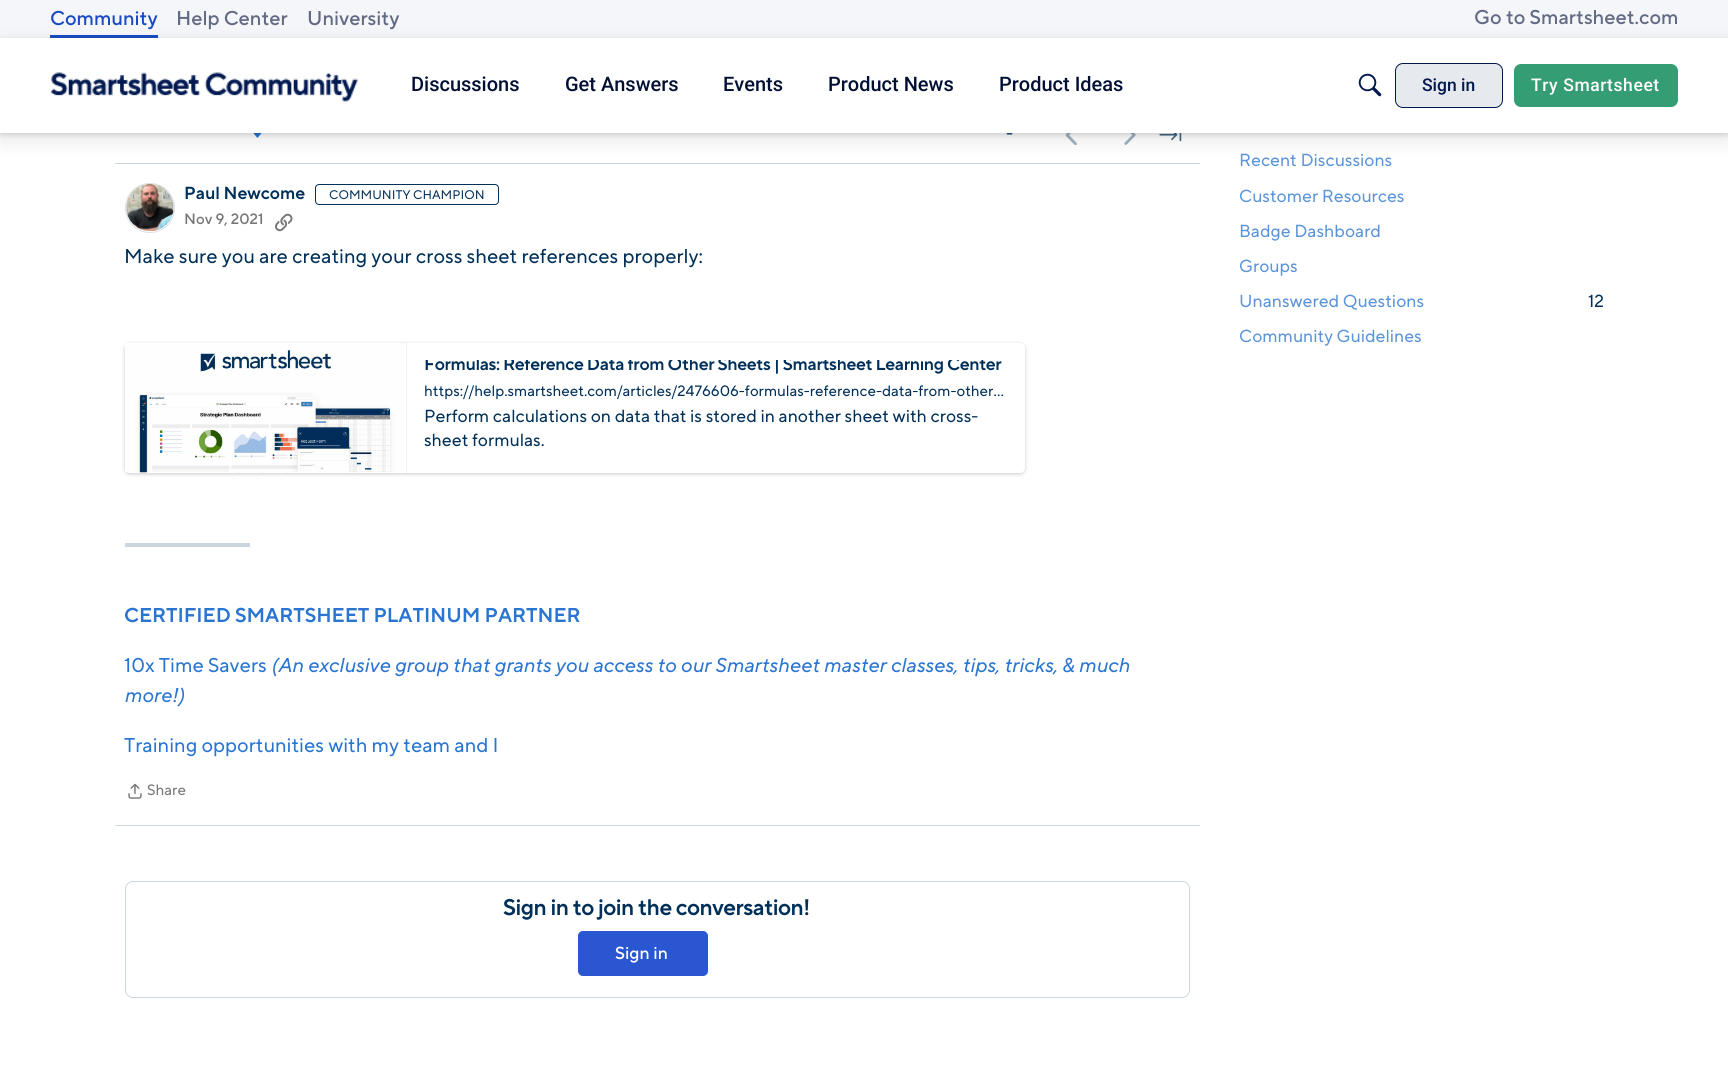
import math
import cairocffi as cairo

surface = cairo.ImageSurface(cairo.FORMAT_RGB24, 1728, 1074)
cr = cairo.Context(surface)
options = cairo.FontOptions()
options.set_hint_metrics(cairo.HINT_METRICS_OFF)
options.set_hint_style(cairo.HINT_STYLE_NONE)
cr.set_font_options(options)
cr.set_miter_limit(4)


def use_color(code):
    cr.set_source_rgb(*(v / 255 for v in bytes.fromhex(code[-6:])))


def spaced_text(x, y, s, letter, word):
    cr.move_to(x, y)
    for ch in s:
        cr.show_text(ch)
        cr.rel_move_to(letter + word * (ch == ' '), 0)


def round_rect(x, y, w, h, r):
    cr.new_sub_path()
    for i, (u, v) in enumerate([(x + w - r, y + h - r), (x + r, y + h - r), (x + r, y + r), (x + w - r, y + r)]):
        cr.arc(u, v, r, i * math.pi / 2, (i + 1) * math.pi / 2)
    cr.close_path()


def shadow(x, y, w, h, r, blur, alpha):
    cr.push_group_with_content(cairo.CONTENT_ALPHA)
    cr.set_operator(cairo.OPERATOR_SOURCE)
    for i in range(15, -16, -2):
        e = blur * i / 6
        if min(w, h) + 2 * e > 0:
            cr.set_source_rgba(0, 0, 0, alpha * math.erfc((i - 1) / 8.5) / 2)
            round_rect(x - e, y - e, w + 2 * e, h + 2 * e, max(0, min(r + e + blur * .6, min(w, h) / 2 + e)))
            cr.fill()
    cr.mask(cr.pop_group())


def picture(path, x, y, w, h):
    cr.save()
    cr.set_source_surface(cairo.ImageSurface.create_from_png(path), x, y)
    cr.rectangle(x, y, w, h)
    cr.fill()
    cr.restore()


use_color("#ffffff")
cr.paint()
use_color("#f5f6fa")
cr.rectangle(0, 0, 1728, 38)
cr.fill()
cr.select_font_face("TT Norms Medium")
cr.set_font_size(20)
use_color("#184bc3")
cr.move_to(50, 25)
cr.show_text("Community")
cr.rectangle(50, 35, 108, 3)
cr.fill()
use_color("#626b83")
cr.move_to(176, 25)
cr.show_text("Help Center")
cr.move_to(307, 25)
cr.show_text("University")
cr.move_to(1474, 24)
cr.show_text("Go to Smartsheet.com")
use_color("#2a75d1")
cr.new_path()
cr.move_to(252.5, 132)
cr.line_to(262.5, 132)
cr.line_to(257.5, 138)
cr.close_path()
cr.fill()
picture("img3.png", 1065, 133, 12, 13)
picture("img4.png", 1124, 133, 12, 12)
picture("img5.png", 1159, 133, 23, 9)
use_color("#ccd6de")
cr.rectangle(115, 163, 1085, 1)
cr.fill()
use_color("#000000")
shadow(0, 45, 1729, 95, 0, 10, 0.1)
shadow(0, 40, 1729, 95, 0, 2.5, 0.12)
use_color("#ffffff")
cr.rectangle(0, 38, 1728, 95)
cr.fill()
picture("img1.png", 50, 72, 308, 30)
cr.select_font_face("Roboto Medium")
use_color("#000f33")
cr.move_to(411, 91)
cr.show_text("Discussions")
cr.move_to(565, 91)
cr.show_text("Get Answers")
cr.move_to(723, 91)
cr.show_text("Events")
cr.move_to(828, 91)
cr.show_text("Product News")
cr.move_to(999, 91)
cr.show_text("Product Ideas")
picture("img2.png", 1358, 73, 24, 24)
use_color("#e6eaee")
round_rect(1395.5, 63.5, 107, 44, 7.5)
cr.fill_preserve()
use_color("#00184d")
cr.set_line_width(1)
cr.stroke()
cr.set_font_size(17.5)
cr.move_to(1422, 91)
cr.show_text("Sign in")
use_color("#349d73")
round_rect(1513.5, 63.5, 165, 44, 7.5)
cr.fill_preserve()
use_color("#ffffff")
cr.stroke()
spaced_text(1531, 91, "Try Smartsheet", 0.6, 0)
cr.select_font_face("TT Norms")
use_color("#003059")
cr.move_to(1006, 139)
cr.show_text("-")
cr.new_path()
cr.arc(150, 208, 24.5, 0, 2 * math.pi)
use_color("#d9e0e6")
cr.stroke()
picture("img6.png", 126, 183, 48, 49)
cr.select_font_face("TT Norms SemiBold")
use_color("#003059")
cr.move_to(184, 199)
cr.show_text("Paul Newcome")
round_rect(315.5, 184.5, 183, 20, 3.5)
cr.stroke()
cr.select_font_face("TT Norms")
cr.set_font_size(12.5)
cr.move_to(329, 199)
cr.show_text("COMMUNITY CHAMPION")
cr.select_font_face("TT Norms Medium")
cr.set_font_size(15)
use_color("#767676")
cr.move_to(184, 224)
cr.show_text("Nov 9, 2021")
picture("img7.png", 275, 213, 18, 19)
cr.select_font_face("TT Norms")
cr.set_font_size(20)
use_color("#003059")
cr.move_to(124, 263)
cr.show_text("Make sure you are creating your cross sheet references properly:")
use_color("#000000")
shadow(125, 344, 900, 130, 5, 2, 0.22)
use_color("#ffffff")
round_rect(125, 343, 900, 130, 5)
cr.fill()
use_color("#eeefef")
cr.rectangle(406, 343, 1, 130)
cr.fill()
picture("img8.png", 125, 343, 282, 130)
cr.save()
cr.rectangle(425, 360, 583, 18)
cr.clip()
cr.select_font_face("TT Norms SemiBold")
cr.set_font_size(17.5)
use_color("#003059")
spaced_text(424, 370, "Formulas: Reference Data from Other Sheets | Smartsheet Learning Center", -0.37, 0)
cr.restore()
cr.set_font_size(15)
use_color("#003059")
cr.move_to(424, 396)
cr.show_text("https://help.smartsheet.com/articles/2476606-formulas-reference-data-from-other…")
cr.set_font_size(17.5)
cr.move_to(424, 422)
cr.show_text("Perform calculations on data that is stored in another sheet with cross-")
cr.move_to(424, 446)
cr.show_text("sheet formulas.")
use_color("#ccd6de")
cr.rectangle(125, 543, 125, 4)
cr.fill()
cr.select_font_face("TT Norms SemiBold")
cr.set_font_size(20)
use_color("#2a75d1")
cr.move_to(124, 622)
cr.show_text("CERTIFIED SMARTSHEET PLATINUM PARTNER")
cr.select_font_face("TT Norms")
cr.move_to(124, 672)
cr.show_text("10x Time Savers")
cr.select_font_face("TT Norms", cairo.FONT_SLANT_ITALIC)
cr.move_to(271, 672)
cr.show_text("(An exclusive group that grants you access to our Smartsheet master classes, tips, tricks, & much")
cr.move_to(124, 702)
cr.show_text("more!)")
cr.select_font_face("TT Norms")
cr.move_to(124, 752)
cr.show_text("Training opportunities with my team and I")
picture("img9.png", 128, 783, 14, 16)
cr.set_font_size(15)
use_color("#767676")
cr.move_to(147, 795)
cr.show_text("Share")
use_color("#ccd6de")
cr.rectangle(115, 825, 1085, 1)
cr.fill()
round_rect(125.5, 881.5, 1064, 116, 7.5)
cr.stroke()
cr.select_font_face("TT Norms SemiBold")
cr.set_font_size(22.5)
use_color("#003059")
spaced_text(503, 915, "Sign in to join the conversation!", -0.5, 0)
use_color("#2a57d1")
round_rect(578.5, 931.5, 129, 44, 4.5)
cr.fill_preserve()
cr.stroke()
cr.select_font_face("TT Norms Medium")
cr.set_font_size(17.5)
use_color("#ffffff")
cr.move_to(615, 959)
cr.show_text("Sign in")
cr.select_font_face("TT Norms")
use_color("#5a94da")
cr.move_to(1239, 166)
cr.show_text("Recent Discussions")
cr.move_to(1239, 202)
cr.show_text("Customer Resources")
cr.move_to(1239, 237)
cr.show_text("Badge Dashboard")
cr.move_to(1239, 272)
cr.show_text("Groups")
cr.move_to(1239, 307)
cr.show_text("Unanswered Questions")
use_color("#003059")
cr.move_to(1588, 307)
cr.show_text("12")
use_color("#5a94da")
cr.move_to(1239, 342)
cr.show_text("Community Guidelines")
surface.write_to_png("result.png")
